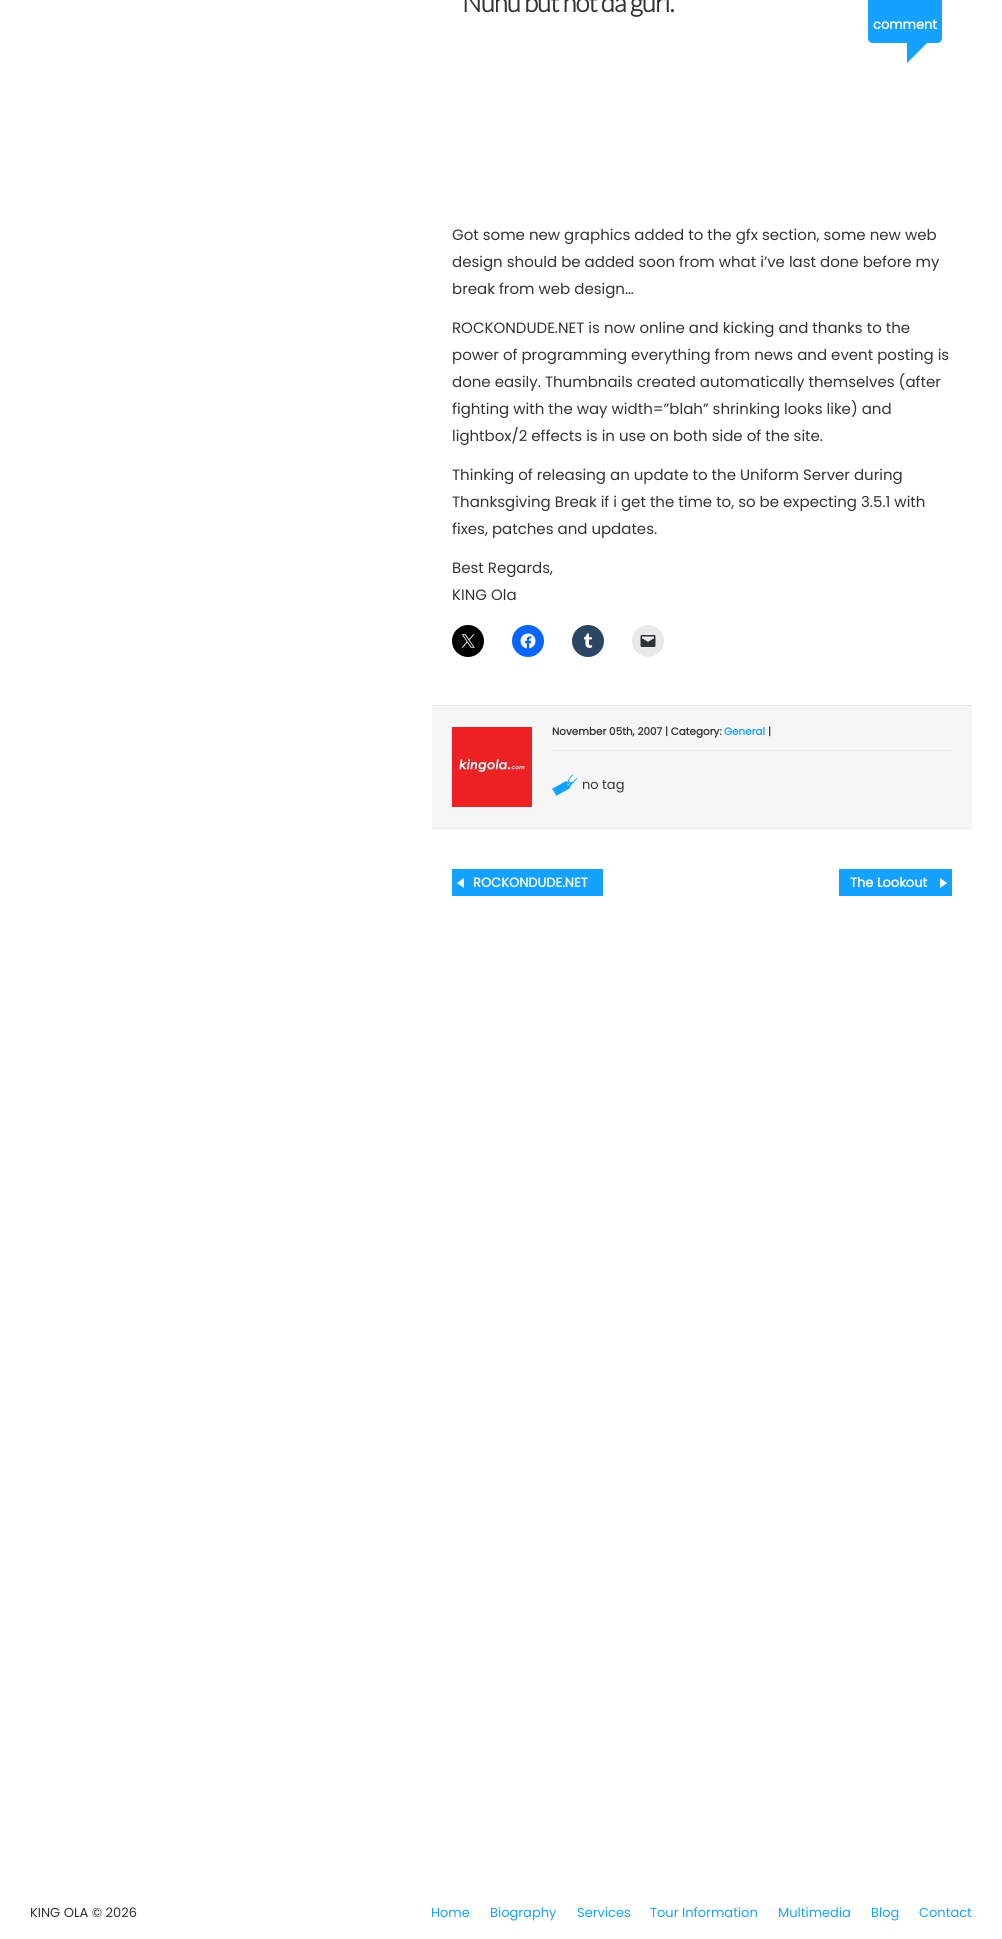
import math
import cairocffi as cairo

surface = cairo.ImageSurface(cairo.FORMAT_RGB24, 1002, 1939)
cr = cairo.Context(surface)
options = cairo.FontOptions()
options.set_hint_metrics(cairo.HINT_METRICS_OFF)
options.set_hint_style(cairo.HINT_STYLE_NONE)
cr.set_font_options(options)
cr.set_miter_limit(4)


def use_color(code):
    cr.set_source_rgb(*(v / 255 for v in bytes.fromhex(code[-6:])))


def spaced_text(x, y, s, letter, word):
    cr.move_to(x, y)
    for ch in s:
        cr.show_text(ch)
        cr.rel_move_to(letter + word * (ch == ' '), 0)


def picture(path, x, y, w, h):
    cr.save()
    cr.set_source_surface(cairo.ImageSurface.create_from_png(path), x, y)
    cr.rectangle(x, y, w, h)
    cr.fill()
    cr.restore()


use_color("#ffffff")
cr.paint()
cr.select_font_face("Lato", cairo.FONT_SLANT_NORMAL, cairo.FONT_WEIGHT_BOLD)
cr.set_font_size(26)
use_color("#333333")
spaced_text(462, 12, "Nunu but not da gurl.", -1, 0)
picture("img1.png", 907, 43, 20, 20)
use_color("#15a2ff")
cr.new_path()
cr.move_to(868, -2)
cr.line_to(942, -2)
cr.line_to(942, 38)
cr.curve_to(942, 41, 940, 43, 937, 43)
cr.line_to(873, 43)
cr.curve_to(870, 43, 868, 41, 868, 38)
cr.close_path()
cr.fill()
cr.select_font_face("Poppins", cairo.FONT_SLANT_NORMAL, cairo.FONT_WEIGHT_BOLD)
cr.set_font_size(13)
use_color("#ffffff")
cr.move_to(873, 29)
cr.show_text("comment")
cr.select_font_face("Poppins")
cr.set_font_size(15)
use_color("#333333")
cr.move_to(452, 240)
cr.show_text("Got some new graphics added to the gfx section, some new web")
cr.move_to(452, 267)
cr.show_text("design should be added soon from what i’ve last done before my")
cr.move_to(452, 294)
cr.show_text("break from web design…")
cr.move_to(452, 333)
cr.show_text("ROCKONDUDE.NET is now online and kicking and thanks to the")
cr.move_to(452, 360)
cr.show_text("power of programming everything from news and event posting is")
cr.move_to(452, 387)
cr.show_text("done easily. Thumbnails created automatically themselves (after")
cr.move_to(452, 414)
cr.show_text("fighting with the way width=”blah” shrinking looks like) and")
cr.move_to(452, 441)
cr.show_text("lightbox/2 effects is in use on both side of the site.")
cr.move_to(452, 480)
cr.show_text("Thinking of releasing an update to the Uniform Server during")
cr.move_to(452, 507)
cr.show_text("Thanksgiving Break if i get the time to, so be expecting 3.5.1 with")
cr.move_to(452, 534)
cr.show_text("fixes, patches and updates.")
cr.move_to(452, 573)
cr.show_text("Best Regards,")
cr.move_to(452, 600)
cr.show_text("KING Ola")
use_color("#000000")
cr.new_path()
cr.arc(468, 641, 16, 0, 2 * math.pi)
cr.fill()
picture("img2.png", 461, 634, 14, 14)
use_color("#0866ff")
cr.arc(528, 641, 16, 0, 2 * math.pi)
cr.fill()
picture("img3.png", 520, 633, 16, 16)
use_color("#2c4762")
cr.arc(588, 641, 16, 0, 2 * math.pi)
cr.fill()
picture("img4.png", 583, 633, 10, 15)
use_color("#e9e9e9")
cr.arc(648, 641, 16, 0, 2 * math.pi)
cr.fill()
picture("img5.png", 640, 635, 16, 12)
use_color("#f6f6f6")
cr.rectangle(432, 705, 540, 124)
cr.fill()
cr.new_path()
cr.move_to(432, 705.5)
cr.line_to(972, 705.5)
use_color("#dddddd")
cr.set_line_width(1)
cr.set_dash([1, 1])
cr.stroke()
cr.new_path()
cr.move_to(432, 828.5)
cr.line_to(972, 828.5)
cr.stroke()
picture("img6.png", 452, 727, 80, 80)
cr.new_path()
cr.move_to(552, 750.5)
cr.line_to(952, 750.5)
cr.stroke()
cr.select_font_face("Poppins", cairo.FONT_SLANT_NORMAL, cairo.FONT_WEIGHT_BOLD)
cr.set_font_size(10.4)
use_color("#333333")
cr.move_to(552, 735)
cr.show_text("November 05th, 2007 | Category:")
use_color("#15a2ff")
cr.move_to(724, 735)
cr.show_text("General")
use_color("#333333")
cr.move_to(768, 735)
cr.show_text("|")
picture("img7.png", 552, 774, 25, 22)
cr.select_font_face("Poppins")
cr.set_font_size(13)
cr.move_to(582, 789)
cr.show_text("no tag")
use_color("#15a2ff")
cr.rectangle(452, 869, 151, 27)
cr.fill()
picture("img8.png", 457, 878, 7, 10)
cr.select_font_face("Poppins", cairo.FONT_SLANT_NORMAL, cairo.FONT_WEIGHT_BOLD)
use_color("#ffffff")
cr.move_to(473, 887)
cr.show_text("ROCKONDUDE.NET")
use_color("#15a2ff")
cr.rectangle(839, 869, 113, 27)
cr.fill()
picture("img9.png", 940, 878, 7, 10)
use_color("#ffffff")
cr.move_to(850, 887)
cr.show_text("The Lookout")
cr.select_font_face("Poppins")
use_color("#333333")
cr.move_to(30, 1917)
cr.show_text("KING OLA © 2026")
use_color("#15a2ff")
cr.move_to(431, 1917)
cr.show_text("Home")
cr.move_to(490, 1917)
cr.show_text("Biography")
cr.move_to(577, 1917)
cr.show_text("Services")
cr.move_to(650, 1917)
cr.show_text("Tour Information")
cr.move_to(778, 1917)
cr.show_text("Multimedia")
cr.move_to(871, 1917)
cr.show_text("Blog")
cr.move_to(919, 1917)
cr.show_text("Contact")
surface.write_to_png("result.png")
